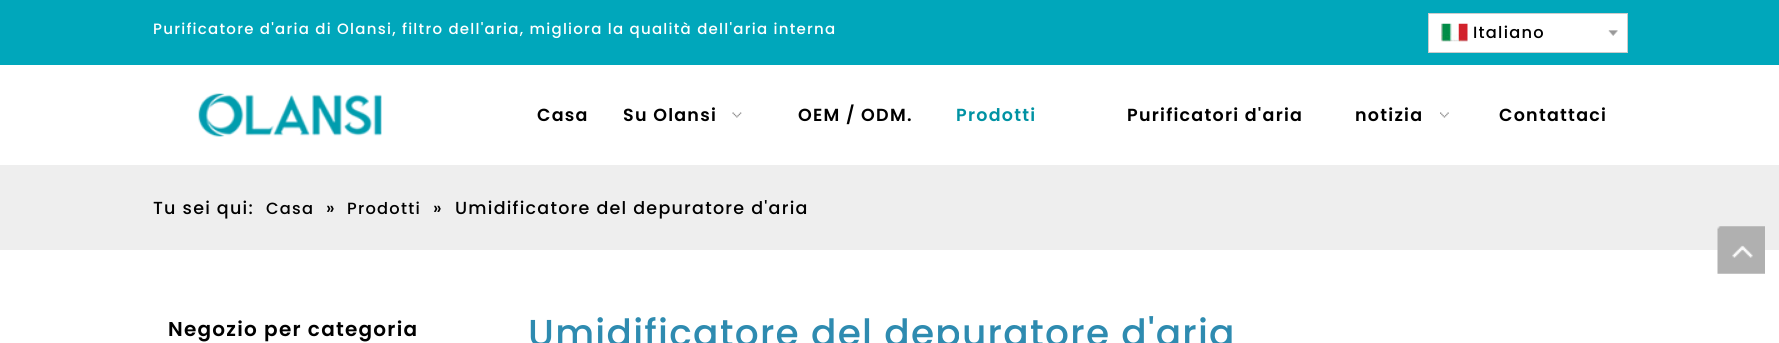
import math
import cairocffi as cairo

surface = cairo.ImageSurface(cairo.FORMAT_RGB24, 1779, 343)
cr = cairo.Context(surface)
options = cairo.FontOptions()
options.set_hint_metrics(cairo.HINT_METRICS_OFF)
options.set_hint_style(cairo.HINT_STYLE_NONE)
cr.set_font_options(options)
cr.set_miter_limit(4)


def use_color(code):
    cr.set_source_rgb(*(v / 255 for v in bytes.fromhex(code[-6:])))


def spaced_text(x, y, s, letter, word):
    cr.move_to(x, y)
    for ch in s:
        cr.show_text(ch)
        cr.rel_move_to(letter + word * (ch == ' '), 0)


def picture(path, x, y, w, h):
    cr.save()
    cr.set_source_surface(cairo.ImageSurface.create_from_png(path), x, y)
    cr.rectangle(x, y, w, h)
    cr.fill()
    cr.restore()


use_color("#ffffff")
cr.paint()
use_color("#00a7bb")
cr.rectangle(0, 0, 1779, 65)
cr.fill()
cr.select_font_face("Poppins Medium")
cr.set_font_size(15)
use_color("#ffffff")
spaced_text(153, 34, "Purificatore d'aria di Olansi, filtro dell'aria, migliora la qualità dell'aria interna", 1.25, 0)
cr.rectangle(1428.5, 13.5, 199, 39)
cr.fill_preserve()
use_color("#cccccc")
cr.set_line_width(1)
cr.stroke()
picture("img1.png", 1441, 23, 27, 19)
cr.set_font_size(16.25)
use_color("#000000")
spaced_text(1473, 38, "Italiano", 1.25, 0)
picture("img2.png", 1608, 30, 10, 6)
picture("img3.png", 198, 93, 184, 44)
cr.select_font_face("Poppins SemiBold")
cr.set_font_size(17.5)
spaced_text(537, 121, "Casa", 1.25, 0)
spaced_text(623, 121, "Su Olansi", 1.25, 0)
picture("img4.png", 732, 112, 10, 6)
spaced_text(798, 121, "OEM / ODM.", 1.25, 0)
use_color("#0092a3")
spaced_text(956, 121, "Prodotti", 1.25, 0)
use_color("#000000")
spaced_text(1127, 121, "Purificatori d'aria", 1.25, 0)
spaced_text(1355, 121, "notizia", 1.25, 0)
picture("img5.png", 1440, 112, 9, 6)
spaced_text(1499, 121, "Contattaci", 1.25, 0)
use_color("#eeeeee")
cr.rectangle(0, 165, 1779, 85)
cr.fill()
cr.select_font_face("Poppins Medium")
use_color("#000000")
spaced_text(153, 214, "Tu sei qui:", 1.25, 0)
cr.set_font_size(16.25)
spaced_text(266, 214, "Casa", 1.25, 0)
cr.set_font_size(17.5)
spaced_text(326, 214, "»", 1.25, 0)
cr.set_font_size(16.25)
spaced_text(347, 214, "Prodotti", 1.25, 0)
cr.set_font_size(17.5)
spaced_text(433, 214, "»", 1.25, 0)
spaced_text(455, 214, "Umidificatore del depuratore d'aria", 1.25, 0)
cr.select_font_face("Poppins SemiBold")
cr.set_font_size(20)
spaced_text(168, 336, "Negozio per categoria", 1.25, 0)
cr.select_font_face("Poppins Medium")
cr.set_font_size(37.5)
use_color("#2e8bb0")
spaced_text(528, 346, "Umidificatore del depuratore d'aria", 1.25, 0)
picture("img6.png", 1717, 226, 48, 48)
surface.write_to_png("result.png")
